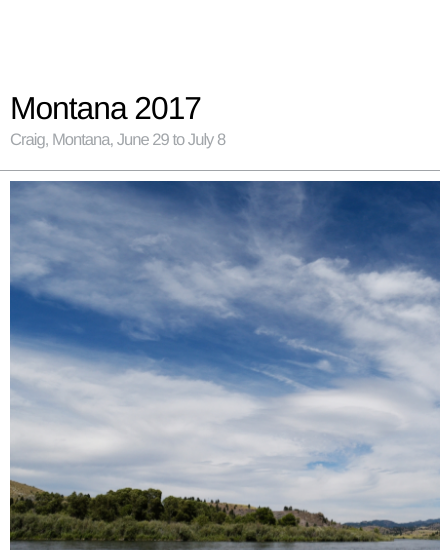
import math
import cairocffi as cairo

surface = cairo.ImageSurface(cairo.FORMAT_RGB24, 440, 550)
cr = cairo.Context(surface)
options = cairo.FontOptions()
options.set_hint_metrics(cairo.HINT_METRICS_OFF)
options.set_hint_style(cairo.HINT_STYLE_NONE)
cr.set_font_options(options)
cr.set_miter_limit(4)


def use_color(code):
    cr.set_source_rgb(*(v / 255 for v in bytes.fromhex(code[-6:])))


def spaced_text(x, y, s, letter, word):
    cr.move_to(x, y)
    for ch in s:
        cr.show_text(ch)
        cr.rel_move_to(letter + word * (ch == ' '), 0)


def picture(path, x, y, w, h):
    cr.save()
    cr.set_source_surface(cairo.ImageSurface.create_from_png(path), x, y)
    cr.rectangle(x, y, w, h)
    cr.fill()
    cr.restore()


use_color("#ffffff")
cr.paint()
use_color("#a1a4a8")
cr.rectangle(0, 170, 440, 1)
cr.fill()
cr.select_font_face("Liberation Sans")
cr.set_font_size(31.75)
use_color("#000000")
spaced_text(10, 119, "Montana 2017", -1, 0)
cr.set_font_size(16.6)
use_color("#a1a5a9")
spaced_text(10, 145, "Craig, Montana, June 29 to July 8", -1, 0)
picture("img1.png", 10, 181, 430, 369)
surface.write_to_png("result.png")
